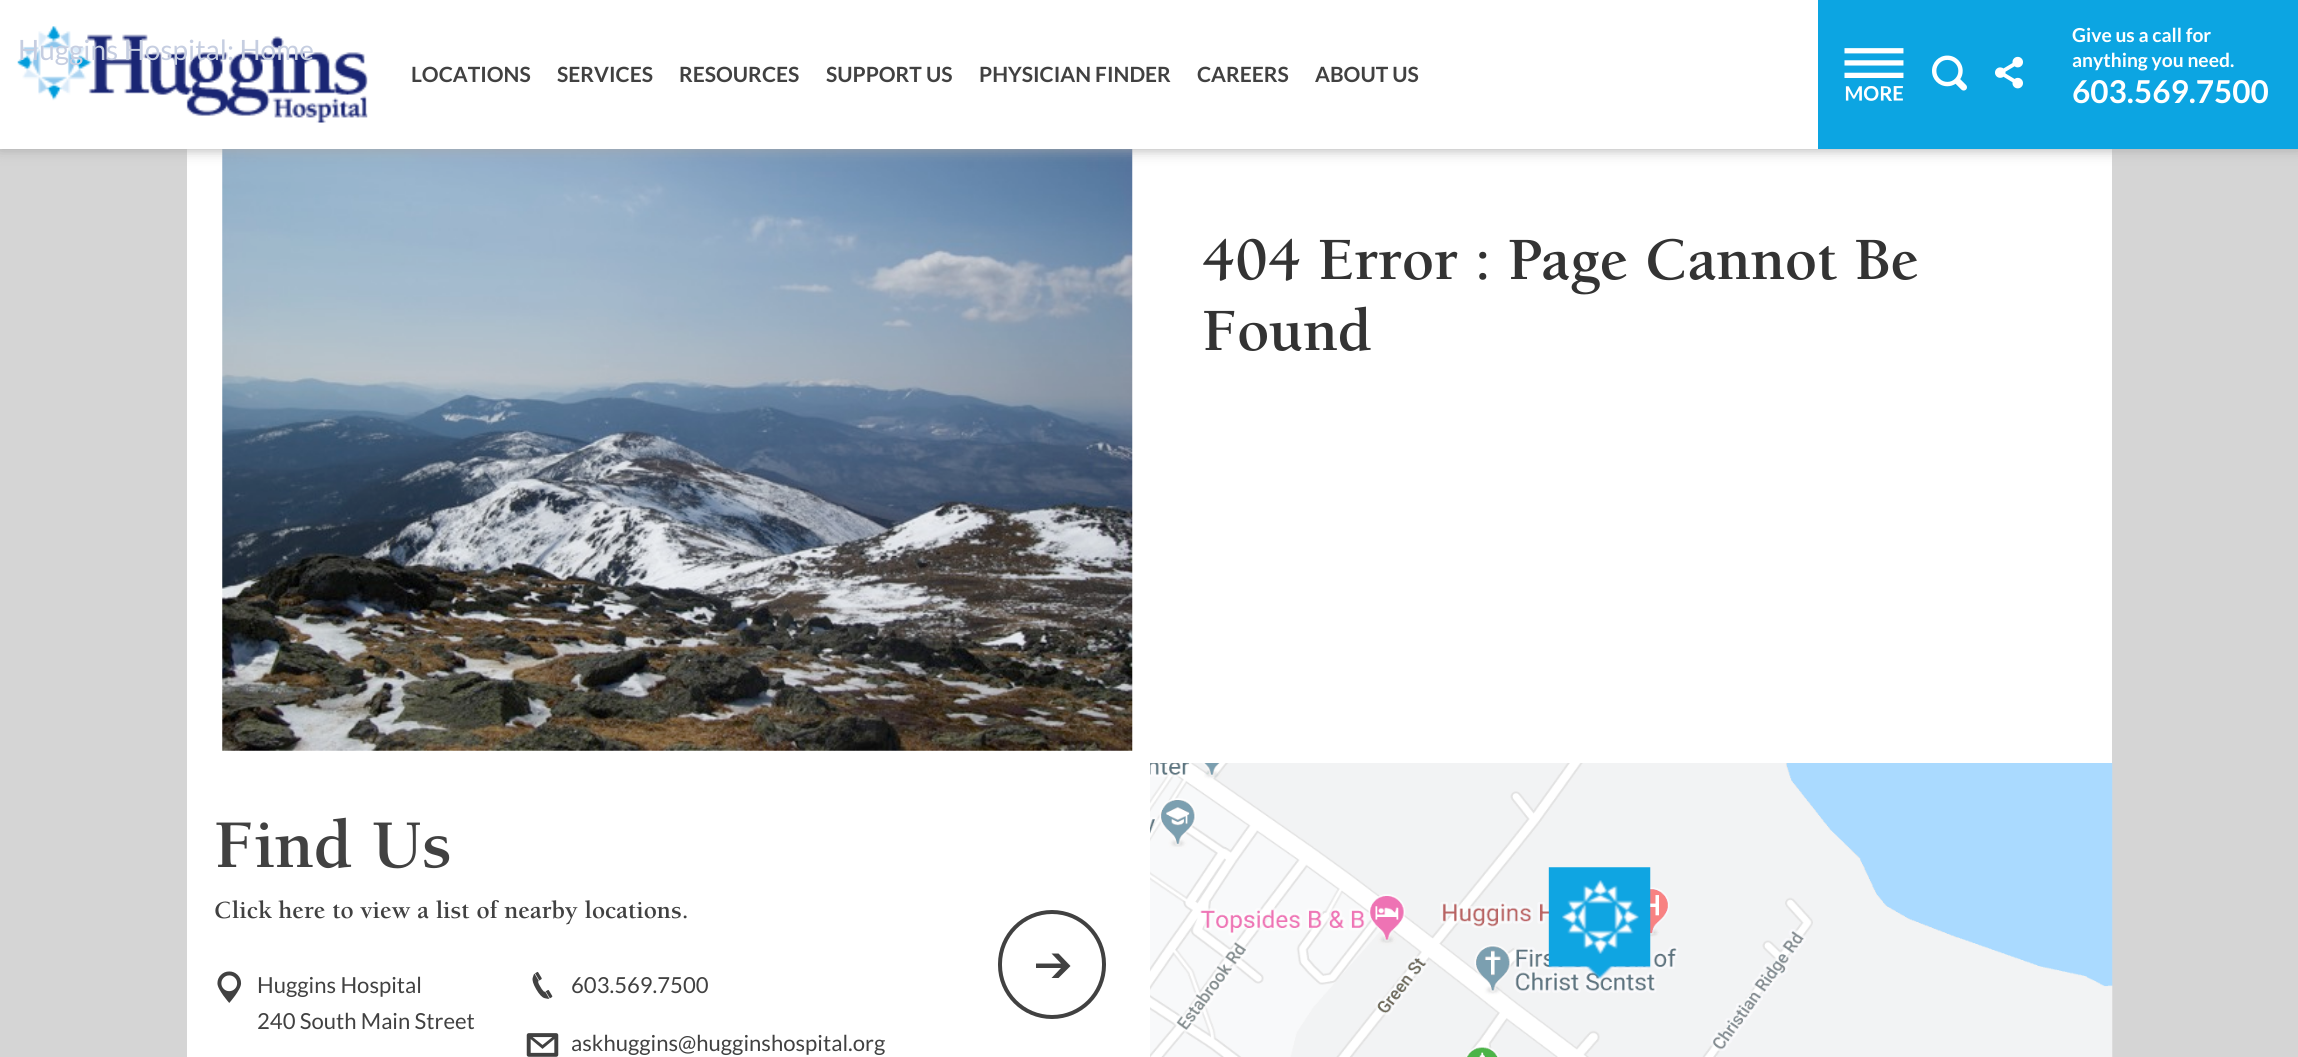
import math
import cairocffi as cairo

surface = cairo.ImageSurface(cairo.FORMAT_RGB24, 2298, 1057)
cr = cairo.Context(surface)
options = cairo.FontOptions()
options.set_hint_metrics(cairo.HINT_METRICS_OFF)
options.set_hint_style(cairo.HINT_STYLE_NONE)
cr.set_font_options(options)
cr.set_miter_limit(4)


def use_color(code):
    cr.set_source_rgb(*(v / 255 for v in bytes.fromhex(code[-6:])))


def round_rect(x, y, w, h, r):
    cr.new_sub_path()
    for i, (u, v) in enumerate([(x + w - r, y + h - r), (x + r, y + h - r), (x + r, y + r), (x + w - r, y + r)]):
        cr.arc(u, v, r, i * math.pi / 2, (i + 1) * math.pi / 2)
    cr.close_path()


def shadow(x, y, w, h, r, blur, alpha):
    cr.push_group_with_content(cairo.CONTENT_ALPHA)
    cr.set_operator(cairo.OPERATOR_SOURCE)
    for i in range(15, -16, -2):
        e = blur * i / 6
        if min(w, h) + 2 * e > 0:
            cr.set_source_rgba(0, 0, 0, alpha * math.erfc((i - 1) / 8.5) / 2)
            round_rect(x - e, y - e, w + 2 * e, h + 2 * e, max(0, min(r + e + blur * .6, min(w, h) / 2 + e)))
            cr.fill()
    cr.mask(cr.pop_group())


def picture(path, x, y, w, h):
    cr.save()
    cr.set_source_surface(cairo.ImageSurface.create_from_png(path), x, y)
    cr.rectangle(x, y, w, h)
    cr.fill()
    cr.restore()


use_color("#d5d5d5")
cr.paint()
use_color("#ffffff")
cr.rectangle(187, 149, 1925, 614)
cr.fill()
picture("img5.png", 222, 149, 911, 602)
use_color("#a9a9a9")
shadow(0, 0, 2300, 149, 0, 7, 1)
use_color("#ffffff")
cr.rectangle(0, 0, 1818, 149)
cr.fill()
picture("img1.png", 17, 26, 351, 97)
cr.select_font_face("Lato")
cr.set_font_size(28)
use_color("#c6cee1")
cr.move_to(18, 60)
cr.show_text("Huggins Hospital: Home")
use_color("#0ca5e2")
cr.rectangle(1818, 0, 480, 149)
cr.fill()
picture("img2.png", 1844, 48, 60, 53)
picture("img3.png", 1932, 55, 35, 36)
picture("img4.png", 1995, 56, 28, 33)
cr.select_font_face("Lato", cairo.FONT_SLANT_NORMAL, cairo.FONT_WEIGHT_BOLD)
cr.set_font_size(19.25)
use_color("#ffffff")
cr.move_to(2072, 42)
cr.show_text("Give us a call for")
cr.move_to(2072, 67)
cr.show_text("anything you need.")
cr.set_font_size(31.5)
cr.move_to(2072, 103)
cr.show_text("603.569.7500")
cr.set_font_size(21)
use_color("#414141")
cr.move_to(411, 82)
cr.show_text("LOCATIONS")
cr.move_to(557, 82)
cr.show_text("SERVICES")
cr.move_to(679, 82)
cr.show_text("RESOURCES")
cr.move_to(826, 82)
cr.show_text("SUPPORT US")
cr.move_to(979, 82)
cr.show_text("PHYSICIAN FINDER")
cr.move_to(1197, 82)
cr.show_text("CAREERS")
cr.move_to(1315, 82)
cr.show_text("ABOUT US")
cr.select_font_face("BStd", cairo.FONT_SLANT_NORMAL, cairo.FONT_WEIGHT_BOLD)
cr.set_font_size(61.6)
use_color("#333333")
cr.move_to(1202, 279)
cr.show_text("404 Error : Page Cannot Be")
cr.move_to(1202, 350)
cr.show_text("Found")
use_color("#ffffff")
cr.rectangle(187, 763, 963, 294)
cr.fill()
cr.set_font_size(70)
use_color("#414141")
cr.move_to(214, 867)
cr.show_text("Find Us")
cr.set_font_size(25.25)
cr.move_to(214, 918)
cr.show_text("Click here to view a list of nearby locations.")
picture("img6.png", 217, 971, 25, 32)
cr.select_font_face("Lato")
cr.set_font_size(22.1)
cr.move_to(257, 993)
cr.show_text("Huggins Hospital")
cr.move_to(257, 1029)
cr.show_text("240 South Main Street")
picture("img7.png", 532, 971, 21, 28)
cr.move_to(571, 993)
cr.show_text("603.569.7500")
picture("img8.png", 526, 1033, 33, 24)
cr.move_to(571, 1051)
cr.show_text("askhuggins@hugginshospital.org")
round_rect(1000, 912, 104, 105, 52)
cr.set_line_width(4)
cr.stroke()
cr.new_path()
cr.move_to(1051.5, 978)
cr.line_to(1061, 968)
cr.line_to(1036, 968)
cr.line_to(1036, 963.5)
cr.line_to(1061, 963.5)
cr.line_to(1051.5, 953.5)
cr.line_to(1058.5, 953.5)
cr.line_to(1070.5, 966)
cr.line_to(1058.5, 978)
cr.close_path()
cr.fill()
picture("img9.png", 1150, 763, 963, 294)
surface.write_to_png("result.png")
